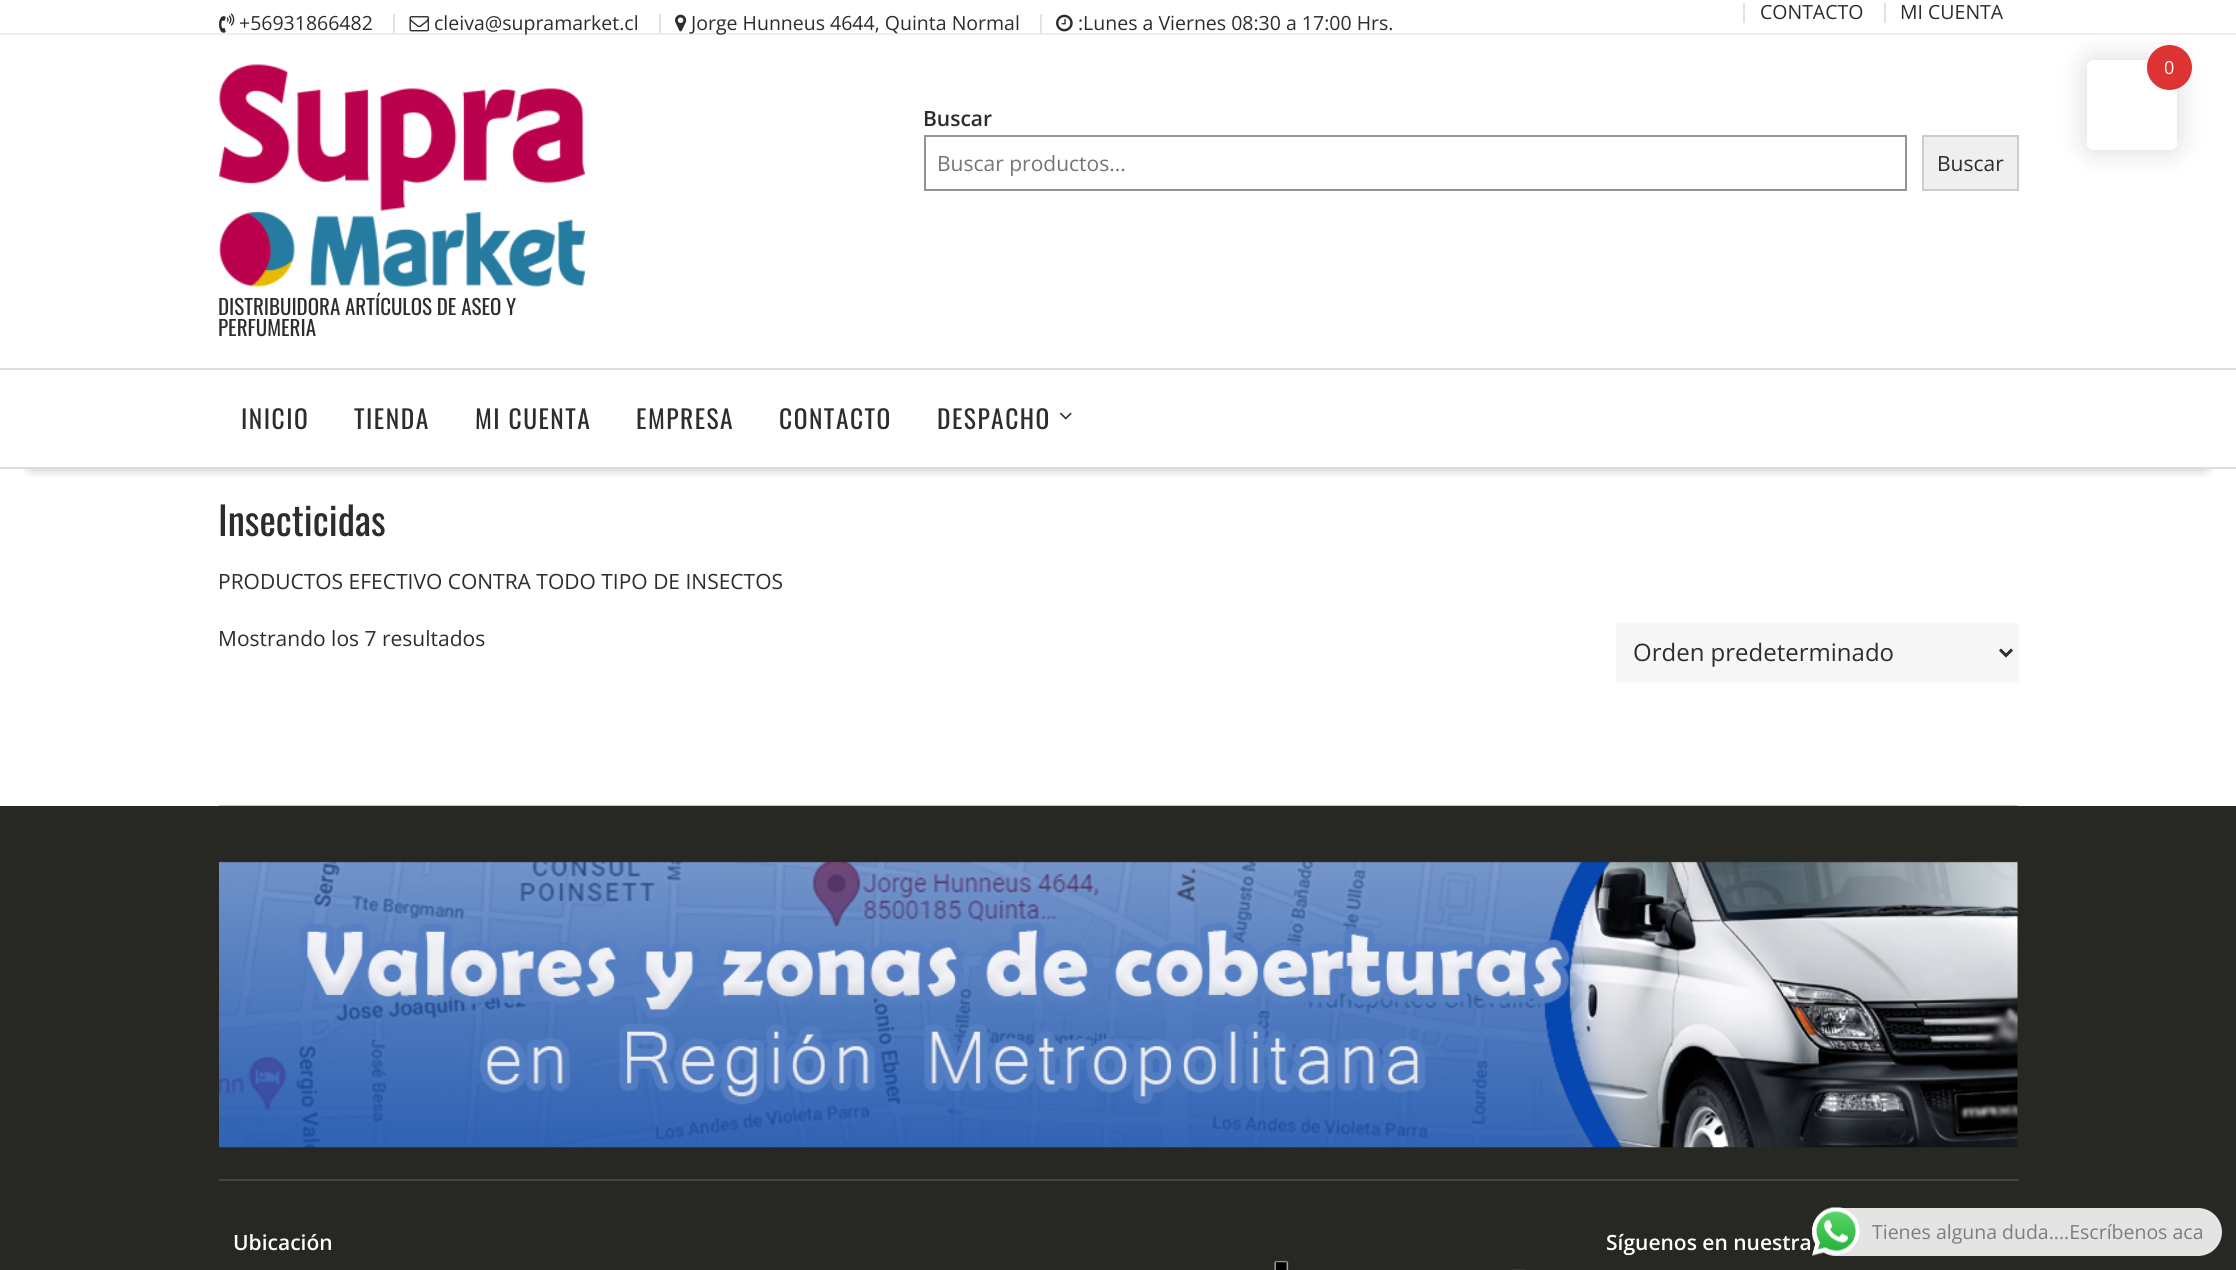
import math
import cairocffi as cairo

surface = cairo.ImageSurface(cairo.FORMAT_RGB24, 2236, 1270)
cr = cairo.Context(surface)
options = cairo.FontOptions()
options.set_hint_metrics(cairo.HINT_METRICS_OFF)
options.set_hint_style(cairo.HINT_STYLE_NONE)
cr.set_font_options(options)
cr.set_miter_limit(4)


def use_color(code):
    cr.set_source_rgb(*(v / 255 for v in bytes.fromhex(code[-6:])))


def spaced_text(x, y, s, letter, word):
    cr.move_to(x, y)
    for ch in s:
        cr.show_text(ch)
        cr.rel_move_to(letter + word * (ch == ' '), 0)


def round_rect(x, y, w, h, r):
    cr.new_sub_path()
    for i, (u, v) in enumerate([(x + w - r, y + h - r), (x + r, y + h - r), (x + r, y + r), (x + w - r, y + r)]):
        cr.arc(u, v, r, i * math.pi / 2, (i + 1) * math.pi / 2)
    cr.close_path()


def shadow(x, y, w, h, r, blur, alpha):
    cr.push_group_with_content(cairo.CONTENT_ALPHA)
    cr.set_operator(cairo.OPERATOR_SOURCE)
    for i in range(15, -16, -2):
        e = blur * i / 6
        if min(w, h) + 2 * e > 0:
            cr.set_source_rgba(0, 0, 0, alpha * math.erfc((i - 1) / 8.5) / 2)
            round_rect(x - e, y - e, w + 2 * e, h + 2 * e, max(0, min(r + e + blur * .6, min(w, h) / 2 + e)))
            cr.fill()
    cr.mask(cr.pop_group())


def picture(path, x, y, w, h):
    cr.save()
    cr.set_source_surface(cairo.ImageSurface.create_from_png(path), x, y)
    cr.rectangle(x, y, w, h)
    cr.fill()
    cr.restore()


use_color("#ffffff")
cr.paint()
use_color("#eeeeee")
cr.rectangle(0, 33, 2236, 2)
cr.fill()
use_color("#e2e2e4")
cr.rectangle(1743, 3, 2, 20)
cr.fill()
cr.select_font_face("Open Sans")
cr.set_font_size(19.5)
use_color("#2d2d2d")
cr.move_to(1760, 19)
cr.show_text("CONTACTO")
use_color("#e2e2e4")
cr.rectangle(1884, 3, 2, 20)
cr.fill()
use_color("#2d2d2d")
cr.move_to(1900, 19)
cr.show_text("MI CUENTA")
picture("img1.png", 219, 13, 16, 20)
cr.move_to(239, 30)
cr.show_text("+56931866482")
use_color("#e2e2e4")
cr.rectangle(393, 14, 2, 19)
cr.fill()
picture("img2.png", 409, 16, 20, 16)
use_color("#2d2d2d")
cr.move_to(434, 30)
cr.show_text("cleiva@supramarket.cl")
use_color("#e2e2e4")
cr.rectangle(659, 14, 2, 19)
cr.fill()
picture("img3.png", 675, 14, 12, 18)
use_color("#2d2d2d")
cr.move_to(691, 30)
cr.show_text("Jorge Hunneus 4644, Quinta Normal")
use_color("#e2e2e4")
cr.rectangle(1040, 14, 2, 19)
cr.fill()
picture("img4.png", 1056, 14, 17, 18)
use_color("#2d2d2d")
cr.move_to(1078, 30)
cr.show_text(":Lunes a Viernes 08:30 a 17:00 Hrs.")
cr.select_font_face("Open Sans SemiBold")
cr.set_font_size(21)
cr.move_to(923, 126)
cr.show_text("Buscar")
cr.rectangle(925, 136, 981, 54)
use_color("#949494")
cr.stroke()
cr.select_font_face("Open Sans")
use_color("#757575")
cr.move_to(937, 171)
cr.show_text("Buscar productos...")
use_color("#efefef")
cr.rectangle(1923, 136, 95, 54)
cr.fill_preserve()
use_color("#cccccc")
cr.stroke()
use_color("#2d2d2d")
cr.move_to(1937, 171)
cr.show_text("Buscar")
picture("img5.png", 219, 64, 366, 223)
cr.select_font_face("Oswald")
cr.move_to(218, 315)
cr.show_text("DISTRIBUIDORA ARTÍCULOS DE ASEO Y")
cr.move_to(218, 336)
cr.show_text("PERFUMERIA")
cr.save()
cr.rectangle(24, 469, 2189, 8)
cr.clip()
use_color("#000000")
shadow(32, 425, 2173, 37, 0, 8, 0.75)
cr.restore()
use_color("#dedede")
cr.rectangle(0, 368, 2236, 2)
cr.fill()
cr.rectangle(0, 467, 2236, 2)
cr.fill()
cr.set_font_size(25.5)
use_color("#2d2d2d")
spaced_text(241, 429, "INICIO", 1.5, 0)
spaced_text(354, 429, "TIENDA", 1.5, 0)
spaced_text(475, 429, "MI CUENTA", 1.5, 0)
spaced_text(636, 429, "EMPRESA", 1.5, 0)
spaced_text(779, 429, "CONTACTO", 1.5, 0)
spaced_text(937, 429, "DESPACHO", 1.5, 0)
picture("img6.png", 1059, 412, 13, 8)
cr.set_font_size(39)
cr.move_to(218, 536)
cr.show_text("Insecticidas")
cr.select_font_face("Open Sans")
cr.set_font_size(21)
cr.move_to(218, 589)
cr.show_text("PRODUCTOS EFECTIVO CONTRA TODO TIPO DE INSECTOS")
cr.move_to(218, 646)
cr.show_text("Mostrando los 7 resultados")
use_color("#f7f7f7")
cr.rectangle(1616, 623, 403, 60)
cr.fill()
cr.new_path()
cr.move_to(2000, 649.5)
cr.line_to(2006, 655.5)
cr.line_to(2012, 649.5)
use_color("#2d2d2d")
cr.set_line_width(3)
cr.stroke()
cr.set_font_size(24)
cr.move_to(1633, 661)
cr.show_text("Orden predeterminado")
use_color("#272823")
cr.rectangle(0, 806, 2236, 464)
cr.fill()
use_color("#444444")
cr.rectangle(219, 1179, 1800, 2)
cr.fill()
picture("img7.png", 219, 805, 1799, 343)
cr.select_font_face("Open Sans SemiBold")
cr.set_font_size(21)
use_color("#ffffff")
cr.move_to(233, 1250)
cr.show_text("Ubicación")
cr.move_to(1606, 1250)
cr.show_text("Síguenos en nuestra")
picture("img8.png", 1274, 1260, 251, 10)
use_color("#000000")
shadow(2087, 60, 90, 90, 6, 15, 0.15)
use_color("#ffffff")
round_rect(2087, 60, 90, 90, 6)
cr.fill()
use_color("#dd3333")
cr.arc(2169.5, 67.5, 22.5, 0, 2 * math.pi)
cr.fill()
cr.select_font_face("Open Sans")
cr.set_font_size(18)
use_color("#ffffff")
cr.move_to(2164, 74)
cr.show_text("0")
use_color("#e4e4e4")
round_rect(1812, 1208, 410, 48, 24)
cr.fill()
picture("img9.png", 1812, 1207, 48, 49)
cr.set_font_size(19.5)
use_color("#7f7d7d")
cr.move_to(1872, 1239)
cr.show_text("Tienes alguna duda....Escríbenos aca")
surface.write_to_png("result.png")
